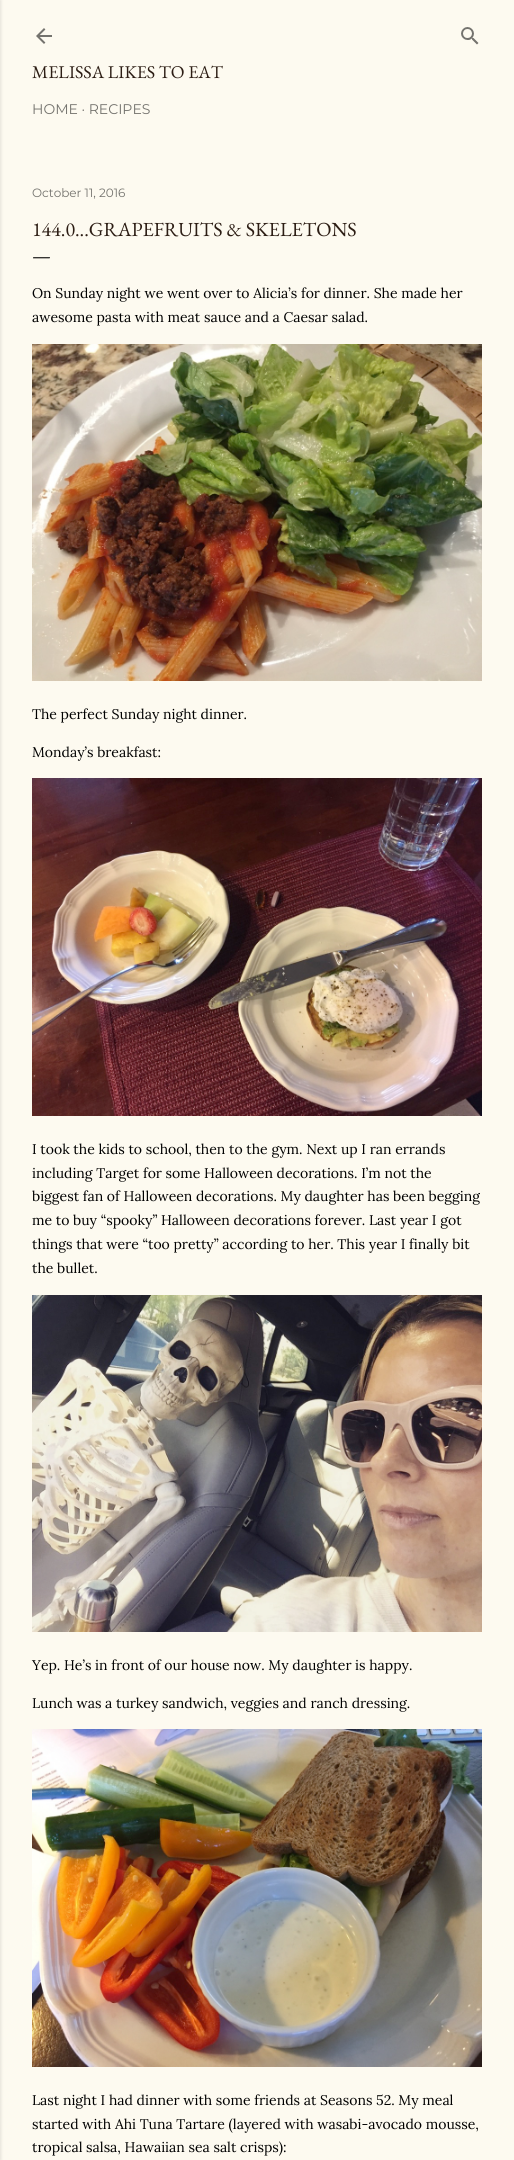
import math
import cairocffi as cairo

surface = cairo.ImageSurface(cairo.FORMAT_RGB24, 514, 2160)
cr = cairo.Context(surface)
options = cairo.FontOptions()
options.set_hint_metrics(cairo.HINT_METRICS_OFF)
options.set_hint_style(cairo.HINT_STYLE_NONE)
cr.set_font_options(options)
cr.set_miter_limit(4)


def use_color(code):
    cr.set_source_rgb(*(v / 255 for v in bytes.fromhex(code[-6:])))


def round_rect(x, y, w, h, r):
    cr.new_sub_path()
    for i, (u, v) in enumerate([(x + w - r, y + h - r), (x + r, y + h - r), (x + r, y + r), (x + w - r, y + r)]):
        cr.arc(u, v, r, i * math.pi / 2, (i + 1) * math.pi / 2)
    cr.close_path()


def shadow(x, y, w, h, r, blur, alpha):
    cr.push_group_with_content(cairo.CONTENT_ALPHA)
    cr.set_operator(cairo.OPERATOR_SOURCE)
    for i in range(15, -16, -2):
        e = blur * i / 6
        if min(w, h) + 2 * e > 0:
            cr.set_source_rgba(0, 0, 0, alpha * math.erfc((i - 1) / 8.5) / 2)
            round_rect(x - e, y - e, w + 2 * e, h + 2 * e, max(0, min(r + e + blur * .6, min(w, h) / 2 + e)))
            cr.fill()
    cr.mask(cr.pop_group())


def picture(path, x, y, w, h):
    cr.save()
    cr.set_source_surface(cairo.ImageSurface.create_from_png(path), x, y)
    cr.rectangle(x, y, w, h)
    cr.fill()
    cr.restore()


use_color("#fdfaf0")
cr.paint()
use_color("#000000")
shadow(-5, 0, 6, 2160, 0, 1.5, 0.1)
picture("img1.png", 36, 28, 16, 16)
picture("img2.png", 461, 27, 18, 18)
cr.select_font_face("EB Garamond")
cr.set_font_size(18)
use_color("#2c1d14")
cr.move_to(32, 78)
cr.show_text("MELISSA LIKES TO EAT")
cr.select_font_face("Montserrat")
cr.set_font_size(14)
use_color("#74736e")
cr.move_to(32, 114)
cr.show_text("HOME · RECIPES")
cr.set_font_size(12)
cr.move_to(32, 197)
cr.show_text("October 11, 2016")
cr.select_font_face("EB Garamond")
cr.set_font_size(20)
use_color("#2c1d14")
cr.move_to(32, 236)
cr.show_text("144.0...GRAPEFRUITS & SKELETONS")
use_color("#000000")
cr.move_to(32, 262)
cr.show_text("—")
cr.select_font_face("Lora")
cr.set_font_size(14)
cr.move_to(32, 298)
cr.show_text("On Sunday night we went over to Alicia’s for dinner. She made her")
cr.move_to(32, 322)
cr.show_text("awesome pasta with meat sauce and a Caesar salad.")
picture("img3.png", 32, 344, 450, 337)
cr.move_to(32, 719)
cr.show_text("The perfect Sunday night dinner.")
cr.move_to(32, 757)
cr.show_text("Monday’s breakfast:")
picture("img4.png", 32, 778, 450, 338)
cr.move_to(32, 1154)
cr.show_text("I took the kids to school, then to the gym. Next up I ran errands")
cr.move_to(32, 1178)
cr.show_text("including Target for some Halloween decorations. I’m not the")
cr.move_to(32, 1201)
cr.show_text("biggest fan of Halloween decorations. My daughter has been begging")
cr.move_to(32, 1225)
cr.show_text("me to buy “spooky” Halloween decorations forever. Last year I got")
cr.move_to(32, 1249)
cr.show_text("things that were “too pretty” according to her. This year I finally bit")
cr.move_to(32, 1273)
cr.show_text("the bullet.")
picture("img5.png", 32, 1295, 450, 337)
cr.move_to(32, 1670)
cr.show_text("Yep. He’s in front of our house now. My daughter is happy.")
cr.move_to(32, 1708)
cr.show_text("Lunch was a turkey sandwich, veggies and ranch dressing.")
picture("img6.png", 32, 1729, 450, 338)
cr.move_to(32, 2105)
cr.show_text("Last night I had dinner with some friends at Seasons 52. My meal")
cr.move_to(32, 2129)
cr.show_text("started with Ahi Tuna Tartare (layered with wasabi-avocado mousse,")
cr.move_to(32, 2152)
cr.show_text("tropical salsa, Hawaiian sea salt crisps):")
surface.write_to_png("result.png")
